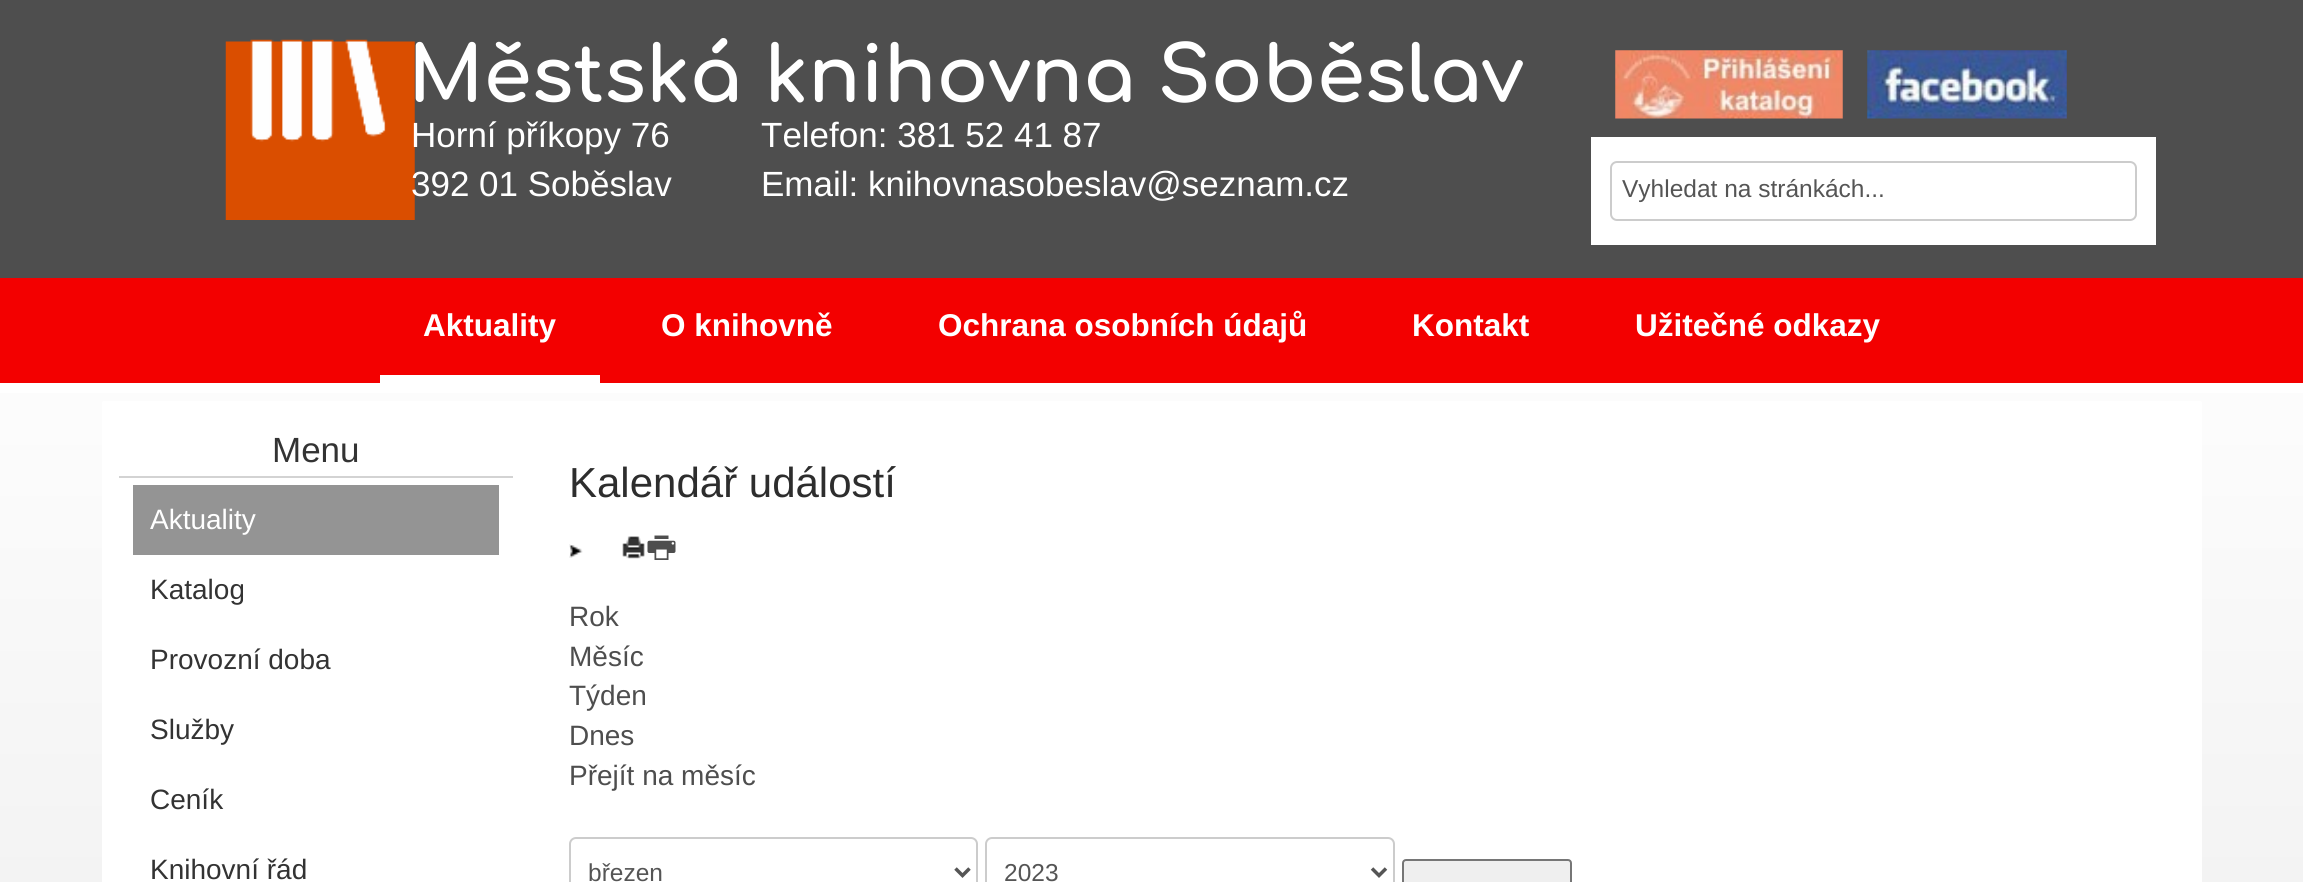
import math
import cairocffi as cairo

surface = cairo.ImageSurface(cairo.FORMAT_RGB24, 2303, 882)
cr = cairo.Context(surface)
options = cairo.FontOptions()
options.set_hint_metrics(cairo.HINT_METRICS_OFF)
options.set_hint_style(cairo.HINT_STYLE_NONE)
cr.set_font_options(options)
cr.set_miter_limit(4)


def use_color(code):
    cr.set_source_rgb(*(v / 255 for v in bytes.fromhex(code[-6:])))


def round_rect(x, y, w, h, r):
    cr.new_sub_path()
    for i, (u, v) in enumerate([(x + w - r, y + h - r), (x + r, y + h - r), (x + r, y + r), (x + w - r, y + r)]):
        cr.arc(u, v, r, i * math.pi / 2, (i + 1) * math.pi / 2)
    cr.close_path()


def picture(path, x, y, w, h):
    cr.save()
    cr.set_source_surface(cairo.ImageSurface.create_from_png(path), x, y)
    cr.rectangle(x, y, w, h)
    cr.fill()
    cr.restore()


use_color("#ffffff")
cr.paint()
gradient = cairo.LinearGradient(1152, 0, 1152, 882)
gradient.add_color_stop_rgba(0, 1, 1, 1, 1)
gradient.add_color_stop_rgba(0.3, 1, 1, 1, 1)
gradient.add_color_stop_rgba(1, 0.953, 0.953, 0.953, 1)
cr.set_source(gradient)
cr.rectangle(0, 393, 2303, 489)
cr.fill()
use_color("#4e4e4e")
cr.rectangle(0, 0, 2303, 278)
cr.fill()
picture("img1.png", 225, 39, 190, 181)
cr.select_font_face("Comfortaa", cairo.FONT_SLANT_NORMAL, cairo.FONT_WEIGHT_BOLD)
cr.set_font_size(77)
use_color("#ffffff")
cr.move_to(408, 102)
cr.show_text("Městská knihovna Soběslav")
cr.select_font_face("Liberation Sans")
cr.set_font_size(35)
cr.move_to(411, 147)
cr.show_text("Horní příkopy 76")
cr.move_to(411, 196)
cr.show_text("392 01 Soběslav")
cr.move_to(761, 147)
cr.show_text("Telefon: 381 52 41 87")
cr.move_to(761, 196)
cr.show_text("Email: knihovnasobeslav@seznam.cz")
picture("img2.png", 1615, 50, 228, 69)
picture("img3.png", 1867, 50, 200, 69)
cr.rectangle(1591, 137, 565, 108)
cr.fill()
round_rect(1611, 162, 525, 58, 6)
use_color("#cccccc")
cr.stroke()
cr.set_font_size(24.5)
use_color("#555555")
cr.move_to(1622, 197)
cr.show_text("Vyhledat na stránkách...")
use_color("#f30000")
cr.rectangle(0, 278, 2303, 105)
cr.fill()
use_color("#ffffff")
cr.rectangle(380, 375, 220, 8)
cr.fill()
cr.select_font_face("Liberation Sans", cairo.FONT_SLANT_NORMAL, cairo.FONT_WEIGHT_BOLD)
cr.set_font_size(31.5)
cr.move_to(423, 336)
cr.show_text("Aktuality")
cr.move_to(661, 336)
cr.show_text("O knihovně")
cr.move_to(938, 336)
cr.show_text("Ochrana osobních údajů")
cr.move_to(1412, 336)
cr.show_text("Kontakt")
cr.move_to(1635, 336)
cr.show_text("Užitečné odkazy")
round_rect(102, 401, 2100, 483, 2)
cr.fill()
use_color("#d3d3d3")
cr.rectangle(119, 476, 394, 2)
cr.fill()
cr.select_font_face("Liberation Sans")
cr.set_font_size(35)
use_color("#333333")
cr.move_to(272, 462)
cr.show_text("Menu")
use_color("#949494")
cr.rectangle(133, 485, 366, 70)
cr.fill()
cr.set_font_size(28)
use_color("#ffffff")
cr.move_to(150, 529)
cr.show_text("Aktuality")
use_color("#333333")
cr.move_to(150, 599)
cr.show_text("Katalog")
cr.move_to(150, 669)
cr.show_text("Provozní doba")
cr.move_to(150, 739)
cr.show_text("Služby")
cr.move_to(150, 809)
cr.show_text("Ceník")
cr.move_to(150, 879)
cr.show_text("Knihovní řád")
cr.set_font_size(42)
use_color("#2d2d2d")
cr.move_to(569, 497)
cr.show_text("Kalendář událostí")
picture("img4.png", 569, 544, 14, 14)
picture("img5.png", 622, 536, 23, 23)
picture("img6.png", 647, 535, 29, 25)
cr.set_font_size(28)
use_color("#4e4e4e")
cr.move_to(569, 626)
cr.show_text("Rok")
cr.move_to(569, 666)
cr.show_text("Měsíc")
cr.move_to(569, 705)
cr.show_text("Týden")
cr.move_to(569, 745)
cr.show_text("Dnes")
cr.move_to(569, 785)
cr.show_text("Přejít na měsíc")
round_rect(570, 838, 407, 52, 6)
use_color("#cccccc")
cr.stroke()
cr.new_path()
cr.move_to(955.5, 868.5)
cr.line_to(962.5, 875.5)
cr.line_to(969.5, 868.5)
use_color("#555555")
cr.set_line_width(3.5)
cr.stroke()
cr.set_font_size(24.5)
cr.move_to(588, 881)
cr.show_text("březen")
round_rect(986, 838, 408, 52, 6)
use_color("#cccccc")
cr.set_line_width(2)
cr.stroke()
cr.new_path()
cr.move_to(1372, 868.5)
cr.line_to(1379, 875.5)
cr.line_to(1386, 868.5)
use_color("#555555")
cr.set_line_width(3.5)
cr.stroke()
cr.move_to(1004, 881)
cr.show_text("2023")
use_color("#efefef")
round_rect(1403, 860, 168, 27, 3)
cr.fill_preserve()
use_color("#767676")
cr.set_line_width(2)
cr.stroke()
surface.write_to_png("result.png")
